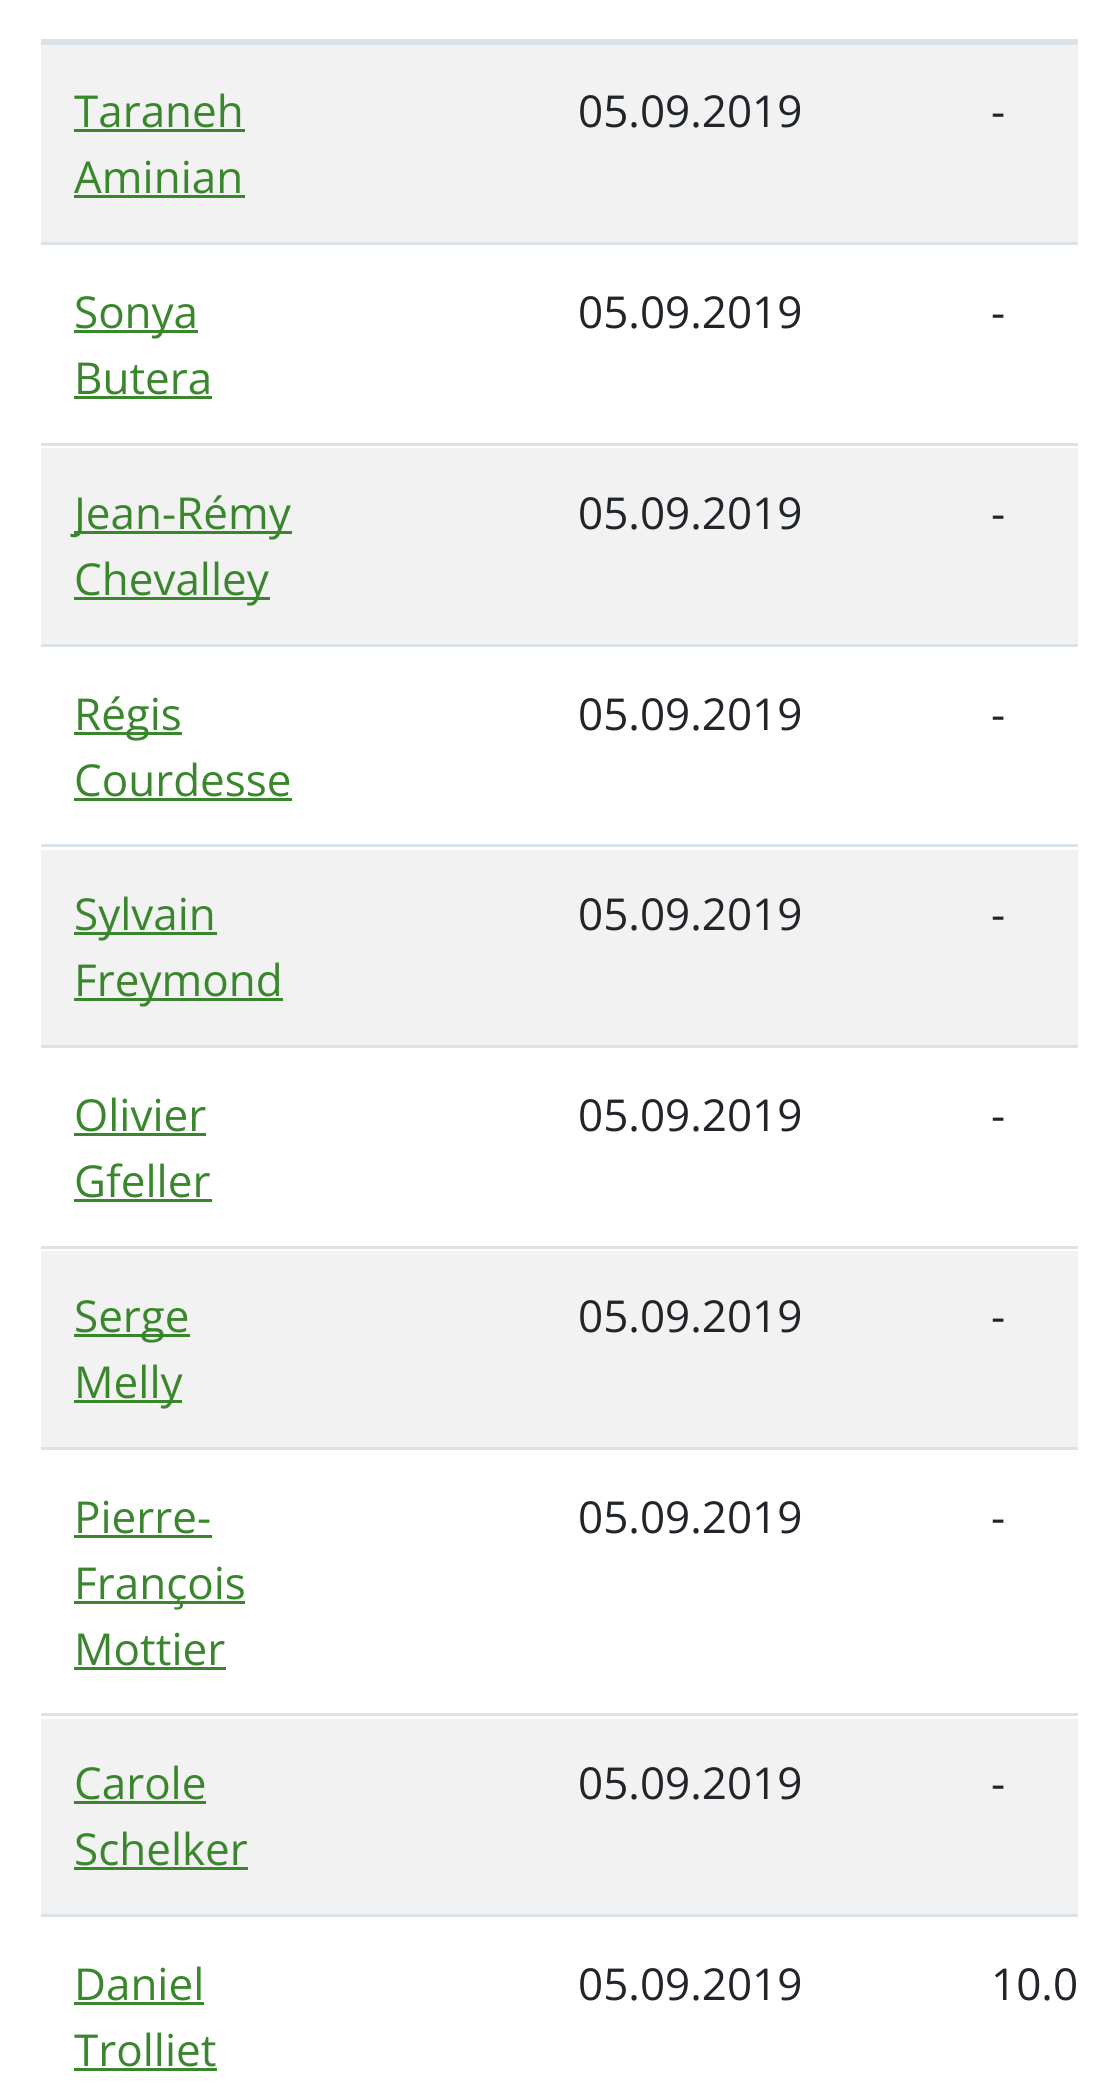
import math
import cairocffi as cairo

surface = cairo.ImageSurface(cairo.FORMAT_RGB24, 1119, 2100)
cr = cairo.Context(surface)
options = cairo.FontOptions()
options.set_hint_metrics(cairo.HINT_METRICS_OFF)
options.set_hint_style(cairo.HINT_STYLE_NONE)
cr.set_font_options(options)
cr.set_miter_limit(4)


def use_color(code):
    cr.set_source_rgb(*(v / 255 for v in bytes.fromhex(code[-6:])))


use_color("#ffffff")
cr.paint()
use_color("#dce3e8")
cr.rectangle(41, 39, 1037, 6)
cr.fill()
use_color("#f2f2f2")
cr.rectangle(41, 45, 1037, 197)
cr.fill()
cr.select_font_face("Open Sans")
cr.set_font_size(44)
use_color("#3a862d")
cr.move_to(74, 127)
cr.show_text("Taraneh")
cr.rectangle(74, 129, 171, 3)
cr.fill()
cr.move_to(74, 193)
cr.show_text("Aminian")
cr.rectangle(74, 195, 171, 3)
cr.fill()
use_color("#212529")
cr.move_to(578, 127)
cr.show_text("05.09.2019")
cr.move_to(991, 127)
cr.show_text("-")
use_color("#3a862d")
cr.rectangle(74, 330, 124, 3)
cr.fill()
cr.move_to(74, 328)
cr.show_text("Sonya")
cr.move_to(74, 394)
cr.show_text("Butera")
cr.rectangle(74, 396, 138, 3)
cr.fill()
use_color("#212529")
cr.move_to(578, 328)
cr.show_text("05.09.2019")
use_color("#dce3e8")
cr.rectangle(41, 242, 1037, 3)
cr.fill()
use_color("#212529")
cr.move_to(991, 328)
cr.show_text("-")
use_color("#f2f2f2")
cr.rectangle(41, 448, 1037, 196)
cr.fill()
use_color("#3a862d")
cr.rectangle(74, 531, 218, 3)
cr.fill()
cr.move_to(74, 529)
cr.show_text("Jean-Rémy")
cr.rectangle(74, 597, 196, 3)
cr.fill()
cr.move_to(74, 595)
cr.show_text("Chevalley")
use_color("#212529")
cr.move_to(578, 529)
cr.show_text("05.09.2019")
use_color("#dce3e8")
cr.rectangle(41, 443, 1037, 3)
cr.fill()
use_color("#212529")
cr.move_to(991, 529)
cr.show_text("-")
use_color("#3a862d")
cr.rectangle(74, 732, 108, 3)
cr.fill()
cr.move_to(74, 730)
cr.show_text("Régis")
cr.move_to(74, 796)
cr.show_text("Courdesse")
cr.rectangle(74, 798, 218, 3)
cr.fill()
use_color("#212529")
cr.move_to(578, 730)
cr.show_text("05.09.2019")
use_color("#dce3e8")
cr.rectangle(41, 644, 1037, 3)
cr.fill()
use_color("#212529")
cr.move_to(991, 730)
cr.show_text("-")
use_color("#f2f2f2")
cr.rectangle(41, 850, 1037, 195)
cr.fill()
use_color("#3a862d")
cr.rectangle(74, 932, 143, 3)
cr.fill()
cr.move_to(74, 930)
cr.show_text("Sylvain")
cr.rectangle(74, 998, 209, 3)
cr.fill()
cr.move_to(74, 996)
cr.show_text("Freymond")
use_color("#212529")
cr.move_to(578, 930)
cr.show_text("05.09.2019")
use_color("#dce3e8")
cr.rectangle(41, 844, 1037, 3)
cr.fill()
use_color("#212529")
cr.move_to(991, 930)
cr.show_text("-")
use_color("#3a862d")
cr.move_to(74, 1131)
cr.show_text("Olivier")
cr.rectangle(74, 1133, 132, 3)
cr.fill()
cr.move_to(74, 1197)
cr.show_text("Gfeller")
cr.rectangle(74, 1199, 138, 3)
cr.fill()
use_color("#212529")
cr.move_to(578, 1131)
cr.show_text("05.09.2019")
use_color("#dce3e8")
cr.rectangle(41, 1045, 1037, 3)
cr.fill()
use_color("#212529")
cr.move_to(991, 1131)
cr.show_text("-")
use_color("#f2f2f2")
cr.rectangle(41, 1251, 1037, 196)
cr.fill()
use_color("#3a862d")
cr.rectangle(74, 1334, 116, 3)
cr.fill()
cr.move_to(74, 1332)
cr.show_text("Serge")
cr.rectangle(74, 1400, 108, 3)
cr.fill()
cr.move_to(74, 1398)
cr.show_text("Melly")
use_color("#212529")
cr.move_to(578, 1332)
cr.show_text("05.09.2019")
use_color("#dce3e8")
cr.rectangle(41, 1246, 1037, 3)
cr.fill()
use_color("#212529")
cr.move_to(991, 1332)
cr.show_text("-")
use_color("#3a862d")
cr.move_to(74, 1533)
cr.show_text("Pierre-")
cr.rectangle(74, 1535, 138, 3)
cr.fill()
cr.rectangle(74, 1601, 171, 3)
cr.fill()
cr.move_to(74, 1599)
cr.show_text("François")
cr.move_to(74, 1665)
cr.show_text("Mottier")
cr.rectangle(74, 1667, 152, 3)
cr.fill()
use_color("#212529")
cr.move_to(578, 1533)
cr.show_text("05.09.2019")
use_color("#dce3e8")
cr.rectangle(41, 1447, 1037, 3)
cr.fill()
use_color("#212529")
cr.move_to(991, 1533)
cr.show_text("-")
use_color("#f2f2f2")
cr.rectangle(41, 1719, 1037, 195)
cr.fill()
use_color("#3a862d")
cr.move_to(74, 1799)
cr.show_text("Carole")
cr.rectangle(74, 1801, 132, 3)
cr.fill()
cr.move_to(74, 1865)
cr.show_text("Schelker")
cr.rectangle(74, 1867, 174, 3)
cr.fill()
use_color("#212529")
cr.move_to(578, 1799)
cr.show_text("05.09.2019")
use_color("#dce3e8")
cr.rectangle(41, 1713, 1037, 3)
cr.fill()
use_color("#212529")
cr.move_to(991, 1799)
cr.show_text("-")
use_color("#3a862d")
cr.move_to(74, 2000)
cr.show_text("Daniel")
cr.rectangle(74, 2002, 130, 3)
cr.fill()
cr.move_to(74, 2066)
cr.show_text("Trolliet")
cr.rectangle(74, 2068, 143, 3)
cr.fill()
use_color("#212529")
cr.move_to(578, 2000)
cr.show_text("05.09.2019")
use_color("#dce3e8")
cr.rectangle(41, 1914, 1037, 3)
cr.fill()
use_color("#212529")
cr.move_to(991, 2000)
cr.show_text("10.0")
surface.write_to_png("result.png")
